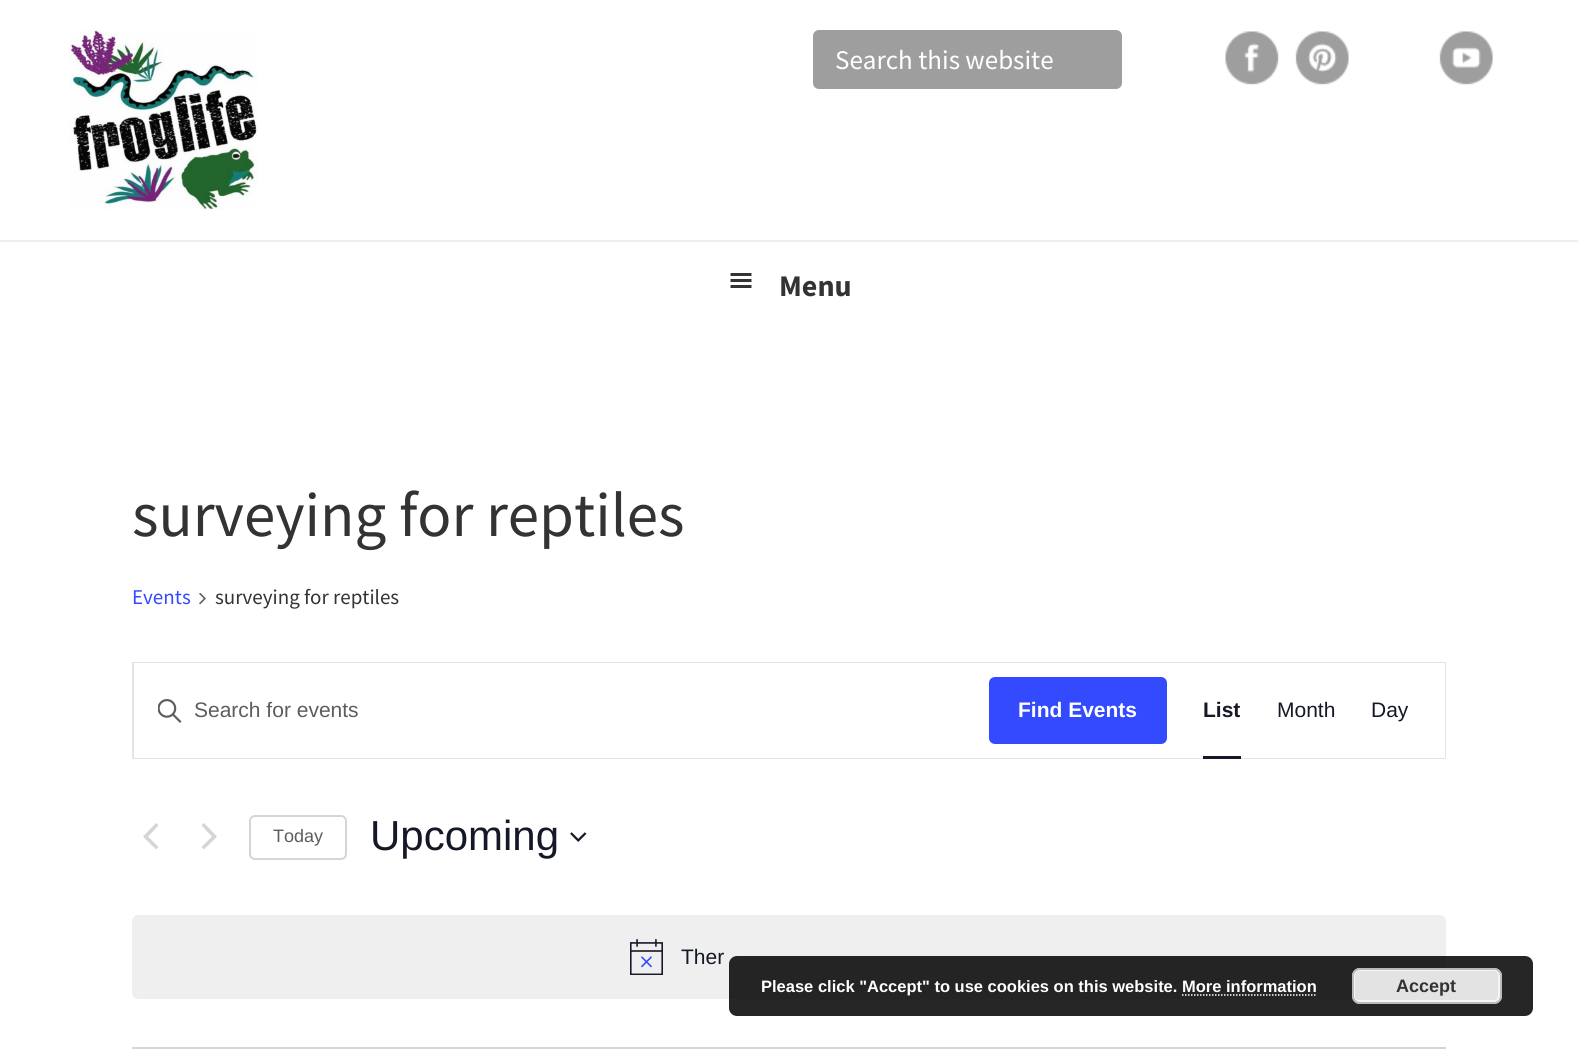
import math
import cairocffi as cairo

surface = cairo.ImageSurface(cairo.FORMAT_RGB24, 1578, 1060)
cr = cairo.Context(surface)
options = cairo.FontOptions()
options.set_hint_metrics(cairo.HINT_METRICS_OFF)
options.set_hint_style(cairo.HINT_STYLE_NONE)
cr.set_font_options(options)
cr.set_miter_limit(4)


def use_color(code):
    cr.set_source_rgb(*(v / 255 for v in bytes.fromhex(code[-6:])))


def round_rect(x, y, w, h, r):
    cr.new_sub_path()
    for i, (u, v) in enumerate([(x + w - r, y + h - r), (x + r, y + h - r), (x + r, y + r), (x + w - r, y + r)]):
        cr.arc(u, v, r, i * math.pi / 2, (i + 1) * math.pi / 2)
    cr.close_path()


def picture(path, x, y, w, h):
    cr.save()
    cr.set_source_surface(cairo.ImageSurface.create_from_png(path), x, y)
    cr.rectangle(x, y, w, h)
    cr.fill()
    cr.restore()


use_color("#ffffff")
cr.paint()
picture("img1.png", 69, 30, 189, 180)
use_color("#9e9e9e")
round_rect(813, 30, 309, 59, 6)
cr.fill()
cr.select_font_face("Source Sans Pro")
cr.set_font_size(27)
use_color("#ffffff")
cr.move_to(835, 69)
cr.show_text("Search this website")
picture("img2.png", 1225, 31, 54, 54)
picture("img3.png", 1295, 31, 54, 54)
picture("img4.png", 1439, 31, 54, 54)
use_color("#eeeeee")
cr.rectangle(0, 240, 1578, 2)
cr.fill()
picture("img5.png", 730, 273, 22, 15)
cr.select_font_face("Source Sans Pro", cairo.FONT_SLANT_NORMAL, cairo.FONT_WEIGHT_BOLD)
cr.set_font_size(30)
use_color("#333333")
cr.move_to(779, 296)
cr.show_text("Menu")
cr.select_font_face("Source Sans Pro")
cr.set_font_size(63)
cr.move_to(132, 536)
cr.show_text("surveying for reptiles")
cr.set_font_size(21)
use_color("#334aff")
cr.move_to(132, 604)
cr.show_text("Events")
picture("img6.png", 199, 593, 7, 12)
use_color("#333333")
cr.move_to(215, 604)
cr.show_text("surveying for reptiles")
cr.rectangle(133, 663, 1312, 95)
use_color("#e4e4e4")
cr.stroke()
use_color("#ffffff")
cr.rectangle(134, 663, 1311, 95)
cr.fill()
picture("img7.png", 158, 699, 24, 24)
cr.select_font_face("Liberation Sans")
use_color("#5d5d5d")
cr.move_to(194, 717)
cr.show_text("Search for events")
use_color("#334aff")
round_rect(989, 677, 178, 67, 6)
cr.fill()
cr.select_font_face("Liberation Sans", cairo.FONT_SLANT_NORMAL, cairo.FONT_WEIGHT_BOLD)
use_color("#ffffff")
cr.move_to(1018, 717)
cr.show_text("Find Events")
use_color("#141827")
cr.move_to(1203, 717)
cr.show_text("List")
cr.rectangle(1203, 756, 38, 3)
cr.fill()
cr.select_font_face("Liberation Sans")
cr.move_to(1277, 717)
cr.show_text("Month")
cr.move_to(1371, 717)
cr.show_text("Day")
use_color("#d5d5d5")
cr.new_path()
cr.move_to(158.5, 847)
cr.line_to(156, 849.5)
cr.line_to(143, 836.5)
cr.line_to(156, 823)
cr.line_to(158.5, 825.5)
cr.line_to(148, 836.5)
cr.close_path()
cr.fill()
cr.new_path()
cr.move_to(201.5, 825.5)
cr.line_to(204, 823)
cr.line_to(217, 836.5)
cr.line_to(204, 849.5)
cr.line_to(201.5, 847)
cr.line_to(212, 836.5)
cr.close_path()
cr.fill()
round_rect(250, 816, 96, 43, 5)
cr.stroke()
cr.set_font_size(18)
use_color("#5d5d5d")
cr.move_to(273, 842)
cr.show_text("Today")
cr.set_font_size(42)
use_color("#141827")
cr.move_to(370, 850)
cr.show_text("Upcoming")
picture("img8.png", 570, 832, 17, 10)
use_color("#efeff0")
round_rect(132, 915, 1314, 84, 6)
cr.fill()
picture("img9.png", 630, 939, 33, 36)
cr.set_font_size(21)
use_color("#141827")
cr.move_to(681, 964)
cr.show_text("Ther")
use_color("#d5d5d5")
cr.rectangle(132, 1047, 1314, 2)
cr.fill()
cr.set_source_rgba(0, 0, 0, 0.85)
round_rect(729, 956, 804, 60, 8)
cr.fill()
cr.select_font_face("Liberation Sans", cairo.FONT_SLANT_NORMAL, cairo.FONT_WEIGHT_BOLD)
cr.set_font_size(16.5)
use_color("#ffffff")
cr.move_to(761, 992)
cr.show_text("Please click \"Accept\" to use cookies on this website. More information")
use_color("#e3e3e3")
round_rect(1352, 968, 150, 36, 8)
cr.fill()
round_rect(1354, 970, 145, 31, 5)
use_color("#f6f6f6")
cr.stroke()
round_rect(1353, 969, 148, 34, 7)
use_color("#bbbbbb")
cr.stroke()
cr.set_font_size(18)
use_color("#333333")
cr.move_to(1396, 992)
cr.show_text("Accept")
cr.new_path()
cr.move_to(1182, 995)
cr.line_to(1317, 995)
use_color("#ffffff")
cr.set_line_width(1.5)
cr.set_dash([1.5, 1.5])
cr.stroke()
surface.write_to_png("result.png")
